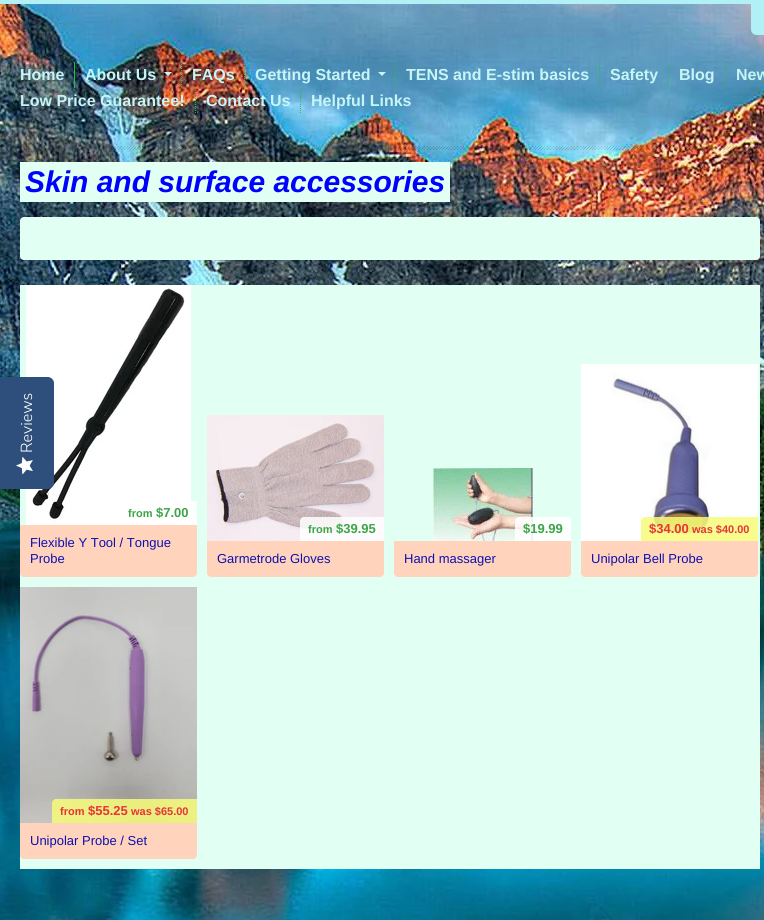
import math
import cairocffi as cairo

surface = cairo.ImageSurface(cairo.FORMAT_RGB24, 764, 920)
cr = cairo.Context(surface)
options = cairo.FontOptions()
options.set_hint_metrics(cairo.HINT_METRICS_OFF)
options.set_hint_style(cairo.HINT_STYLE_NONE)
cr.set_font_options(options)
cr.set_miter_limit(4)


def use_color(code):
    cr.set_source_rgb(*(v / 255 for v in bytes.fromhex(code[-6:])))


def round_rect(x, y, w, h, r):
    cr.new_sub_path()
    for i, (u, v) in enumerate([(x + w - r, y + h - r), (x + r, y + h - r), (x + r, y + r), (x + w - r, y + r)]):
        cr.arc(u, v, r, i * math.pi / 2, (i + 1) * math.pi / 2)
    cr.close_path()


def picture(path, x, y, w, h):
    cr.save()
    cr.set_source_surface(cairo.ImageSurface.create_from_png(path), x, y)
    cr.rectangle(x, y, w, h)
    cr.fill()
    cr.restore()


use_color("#ffffff")
cr.paint()
picture("img1.png", 0, 4, 764, 916)
use_color("#b1f1f6")
cr.rectangle(0, 0, 764, 4)
cr.fill()
cr.new_path()
cr.move_to(751, 4)
cr.line_to(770, 4)
cr.line_to(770, 29)
cr.curve_to(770, 32.5, 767.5, 35, 764, 35)
cr.line_to(757, 35)
cr.curve_to(753.5, 35, 751, 32.5, 751, 29)
cr.close_path()
cr.fill()
use_color("#2dba4f")
cr.rectangle(74, 62, 1, 26)
cr.fill()
cr.select_font_face("Liberation Sans", cairo.FONT_SLANT_NORMAL, cairo.FONT_WEIGHT_BOLD)
cr.set_font_size(16)
use_color("#c7f5f7")
cr.move_to(20, 80)
cr.show_text("Home")
cr.new_path()
cr.move_to(181.5, 62)
cr.line_to(181.5, 88)
use_color("#2dba4f")
cr.set_line_width(1)
cr.set_dash([1, 1])
cr.stroke()
use_color("#c7f5f7")
cr.move_to(85, 80)
cr.show_text("About Us")
cr.new_path()
cr.move_to(164, 72)
cr.line_to(172, 72)
cr.line_to(168, 76)
cr.close_path()
cr.fill()
cr.new_path()
cr.move_to(244.5, 62)
cr.line_to(244.5, 88)
use_color("#2dba4f")
cr.stroke()
use_color("#c7f5f7")
cr.move_to(192, 80)
cr.show_text("FAQs")
cr.new_path()
cr.move_to(395.5, 62)
cr.line_to(395.5, 88)
use_color("#2dba4f")
cr.stroke()
use_color("#c7f5f7")
cr.move_to(255, 80)
cr.show_text("Getting Started")
cr.new_path()
cr.move_to(378, 72)
cr.line_to(386, 72)
cr.line_to(382, 76)
cr.close_path()
cr.fill()
cr.new_path()
cr.move_to(599.5, 62)
cr.line_to(599.5, 88)
use_color("#2dba4f")
cr.stroke()
use_color("#c7f5f7")
cr.move_to(406, 80)
cr.show_text("TENS and E-stim basics")
cr.new_path()
cr.move_to(668.5, 62)
cr.line_to(668.5, 88)
use_color("#2dba4f")
cr.stroke()
use_color("#c7f5f7")
cr.move_to(610, 80)
cr.show_text("Safety")
cr.new_path()
cr.move_to(725.5, 62)
cr.line_to(725.5, 88)
use_color("#2dba4f")
cr.stroke()
use_color("#c7f5f7")
cr.move_to(679, 80)
cr.show_text("Blog")
cr.move_to(736, 80)
cr.show_text("New")
cr.new_path()
cr.move_to(195.5, 88)
cr.line_to(195.5, 114)
use_color("#2dba4f")
cr.stroke()
use_color("#c7f5f7")
cr.move_to(20, 106)
cr.show_text("Low Price Guarantee!")
cr.new_path()
cr.move_to(300.5, 88)
cr.line_to(300.5, 114)
use_color("#2dba4f")
cr.stroke()
use_color("#c7f5f7")
cr.move_to(206, 106)
cr.show_text("Contact Us")
cr.move_to(311, 106)
cr.show_text("Helpful Links")
picture("img2.png", 20, 146, 740, 4)
use_color("#e1fff2")
cr.rectangle(20, 162, 430, 40)
cr.fill()
cr.select_font_face("Liberation Sans", cairo.FONT_SLANT_ITALIC, cairo.FONT_WEIGHT_BOLD)
cr.set_font_size(30)
use_color("#0000ff")
cr.move_to(25, 192)
cr.show_text("Skin and surface accessories")
use_color("#e1fff2")
round_rect(20, 217, 740, 43, 4)
cr.fill()
cr.rectangle(20, 285, 740, 584)
cr.fill()
picture("img3.png", 26, 285, 165, 240)
cr.set_source_rgba(1, 1, 1, 0.85)
cr.new_path()
cr.move_to(124, 501)
cr.line_to(197, 501)
cr.line_to(197, 525)
cr.line_to(120, 525)
cr.line_to(120, 505)
cr.curve_to(120, 503, 122, 501, 124, 501)
cr.close_path()
cr.fill()
cr.select_font_face("Liberation Sans", cairo.FONT_SLANT_NORMAL, cairo.FONT_WEIGHT_BOLD)
cr.set_font_size(11)
use_color("#3ca547")
cr.move_to(128, 517)
cr.show_text("from")
cr.set_font_size(13)
cr.move_to(156, 517)
cr.show_text("$7.00")
use_color("#ffd3bc")
cr.new_path()
cr.move_to(20, 525)
cr.line_to(197, 525)
cr.line_to(197, 573)
cr.curve_to(197, 575, 195, 577, 193, 577)
cr.line_to(24, 577)
cr.curve_to(22, 577, 20, 575, 20, 573)
cr.close_path()
cr.fill()
cr.select_font_face("Liberation Sans")
use_color("#0e10b0")
cr.move_to(30, 547)
cr.show_text("Flexible Y Tool / Tongue")
cr.move_to(30, 563)
cr.show_text("Probe")
picture("img4.png", 207, 415, 177, 126)
cr.set_source_rgba(1, 1, 1, 0.85)
cr.new_path()
cr.move_to(304, 517)
cr.line_to(384, 517)
cr.line_to(384, 541)
cr.line_to(300, 541)
cr.line_to(300, 521)
cr.curve_to(300, 519, 302, 517, 304, 517)
cr.close_path()
cr.fill()
cr.select_font_face("Liberation Sans", cairo.FONT_SLANT_NORMAL, cairo.FONT_WEIGHT_BOLD)
cr.set_font_size(11)
use_color("#3ca547")
cr.move_to(308, 533)
cr.show_text("from")
cr.set_font_size(13)
cr.move_to(336, 533)
cr.show_text("$39.95")
use_color("#ffd3bc")
cr.new_path()
cr.move_to(207, 541)
cr.line_to(384, 541)
cr.line_to(384, 573)
cr.curve_to(384, 575, 382, 577, 380, 577)
cr.line_to(211, 577)
cr.curve_to(209, 577, 207, 575, 207, 573)
cr.close_path()
cr.fill()
cr.select_font_face("Liberation Sans")
use_color("#0e10b0")
cr.move_to(217, 563)
cr.show_text("Garmetrode Gloves")
picture("img5.png", 433, 468, 100, 73)
cr.set_source_rgba(1, 1, 1, 0.85)
cr.new_path()
cr.move_to(519, 517)
cr.line_to(571, 517)
cr.line_to(571, 541)
cr.line_to(515, 541)
cr.line_to(515, 521)
cr.curve_to(515, 519, 517, 517, 519, 517)
cr.close_path()
cr.fill()
cr.select_font_face("Liberation Sans", cairo.FONT_SLANT_NORMAL, cairo.FONT_WEIGHT_BOLD)
use_color("#3ca547")
cr.move_to(523, 533)
cr.show_text("$19.99")
use_color("#ffd3bc")
cr.new_path()
cr.move_to(394, 541)
cr.line_to(571, 541)
cr.line_to(571, 573)
cr.curve_to(571, 575, 569, 577, 567, 577)
cr.line_to(398, 577)
cr.curve_to(396, 577, 394, 575, 394, 573)
cr.close_path()
cr.fill()
cr.select_font_face("Liberation Sans")
use_color("#0e10b0")
cr.move_to(404, 563)
cr.show_text("Hand massager")
picture("img6.png", 581, 364, 177, 177)
cr.set_source_rgba(0.965, 0.984, 0.475, 0.85)
cr.new_path()
cr.move_to(645, 517)
cr.line_to(758, 517)
cr.line_to(758, 541)
cr.line_to(641, 541)
cr.line_to(641, 521)
cr.curve_to(641, 519, 643, 517, 645, 517)
cr.close_path()
cr.fill()
cr.select_font_face("Liberation Sans", cairo.FONT_SLANT_NORMAL, cairo.FONT_WEIGHT_BOLD)
use_color("#e83337")
cr.move_to(649, 533)
cr.show_text("$34.00")
cr.set_font_size(11)
cr.move_to(692, 533)
cr.show_text("was $40.00")
use_color("#ffd3bc")
cr.new_path()
cr.move_to(581, 541)
cr.line_to(758, 541)
cr.line_to(758, 573)
cr.curve_to(758, 575, 756, 577, 754, 577)
cr.line_to(585, 577)
cr.curve_to(583, 577, 581, 575, 581, 573)
cr.close_path()
cr.fill()
cr.select_font_face("Liberation Sans")
cr.set_font_size(13)
use_color("#0e10b0")
cr.move_to(591, 563)
cr.show_text("Unipolar Bell Probe")
picture("img7.png", 20, 587, 177, 236)
cr.set_source_rgba(0.965, 0.984, 0.475, 0.85)
cr.new_path()
cr.move_to(56, 799)
cr.line_to(197, 799)
cr.line_to(197, 823)
cr.line_to(52, 823)
cr.line_to(52, 803)
cr.curve_to(52, 801, 54, 799, 56, 799)
cr.close_path()
cr.fill()
cr.select_font_face("Liberation Sans", cairo.FONT_SLANT_NORMAL, cairo.FONT_WEIGHT_BOLD)
cr.set_font_size(11)
use_color("#e83337")
cr.move_to(60, 815)
cr.show_text("from")
cr.set_font_size(13)
cr.move_to(88, 815)
cr.show_text("$55.25")
cr.set_font_size(11)
cr.move_to(131, 815)
cr.show_text("was $65.00")
use_color("#ffd3bc")
cr.new_path()
cr.move_to(20, 823)
cr.line_to(197, 823)
cr.line_to(197, 855)
cr.curve_to(197, 857, 195, 859, 193, 859)
cr.line_to(24, 859)
cr.curve_to(22, 859, 20, 857, 20, 855)
cr.close_path()
cr.fill()
cr.select_font_face("Liberation Sans")
cr.set_font_size(13)
use_color("#0e10b0")
cr.move_to(30, 845)
cr.show_text("Unipolar Probe / Set")
use_color("#2e4f7c")
cr.new_path()
cr.move_to(0, 489)
cr.line_to(0, 377)
cr.line_to(48, 377)
cr.curve_to(51, 377, 54, 380, 54, 383)
cr.line_to(54, 483)
cr.curve_to(54, 486, 51, 489, 48, 489)
cr.close_path()
cr.fill()
cr.select_font_face("Nunito Sans Light")
cr.set_font_size(16)
use_color("#ffffff")
cr.save()
cr.translate(32, 453)
cr.rotate(-90 * math.pi / 180)
cr.move_to(0, 0)
cr.show_text("Reviews")
cr.restore()
picture("img8.png", 16, 456, 17, 19)
surface.write_to_png("result.png")
